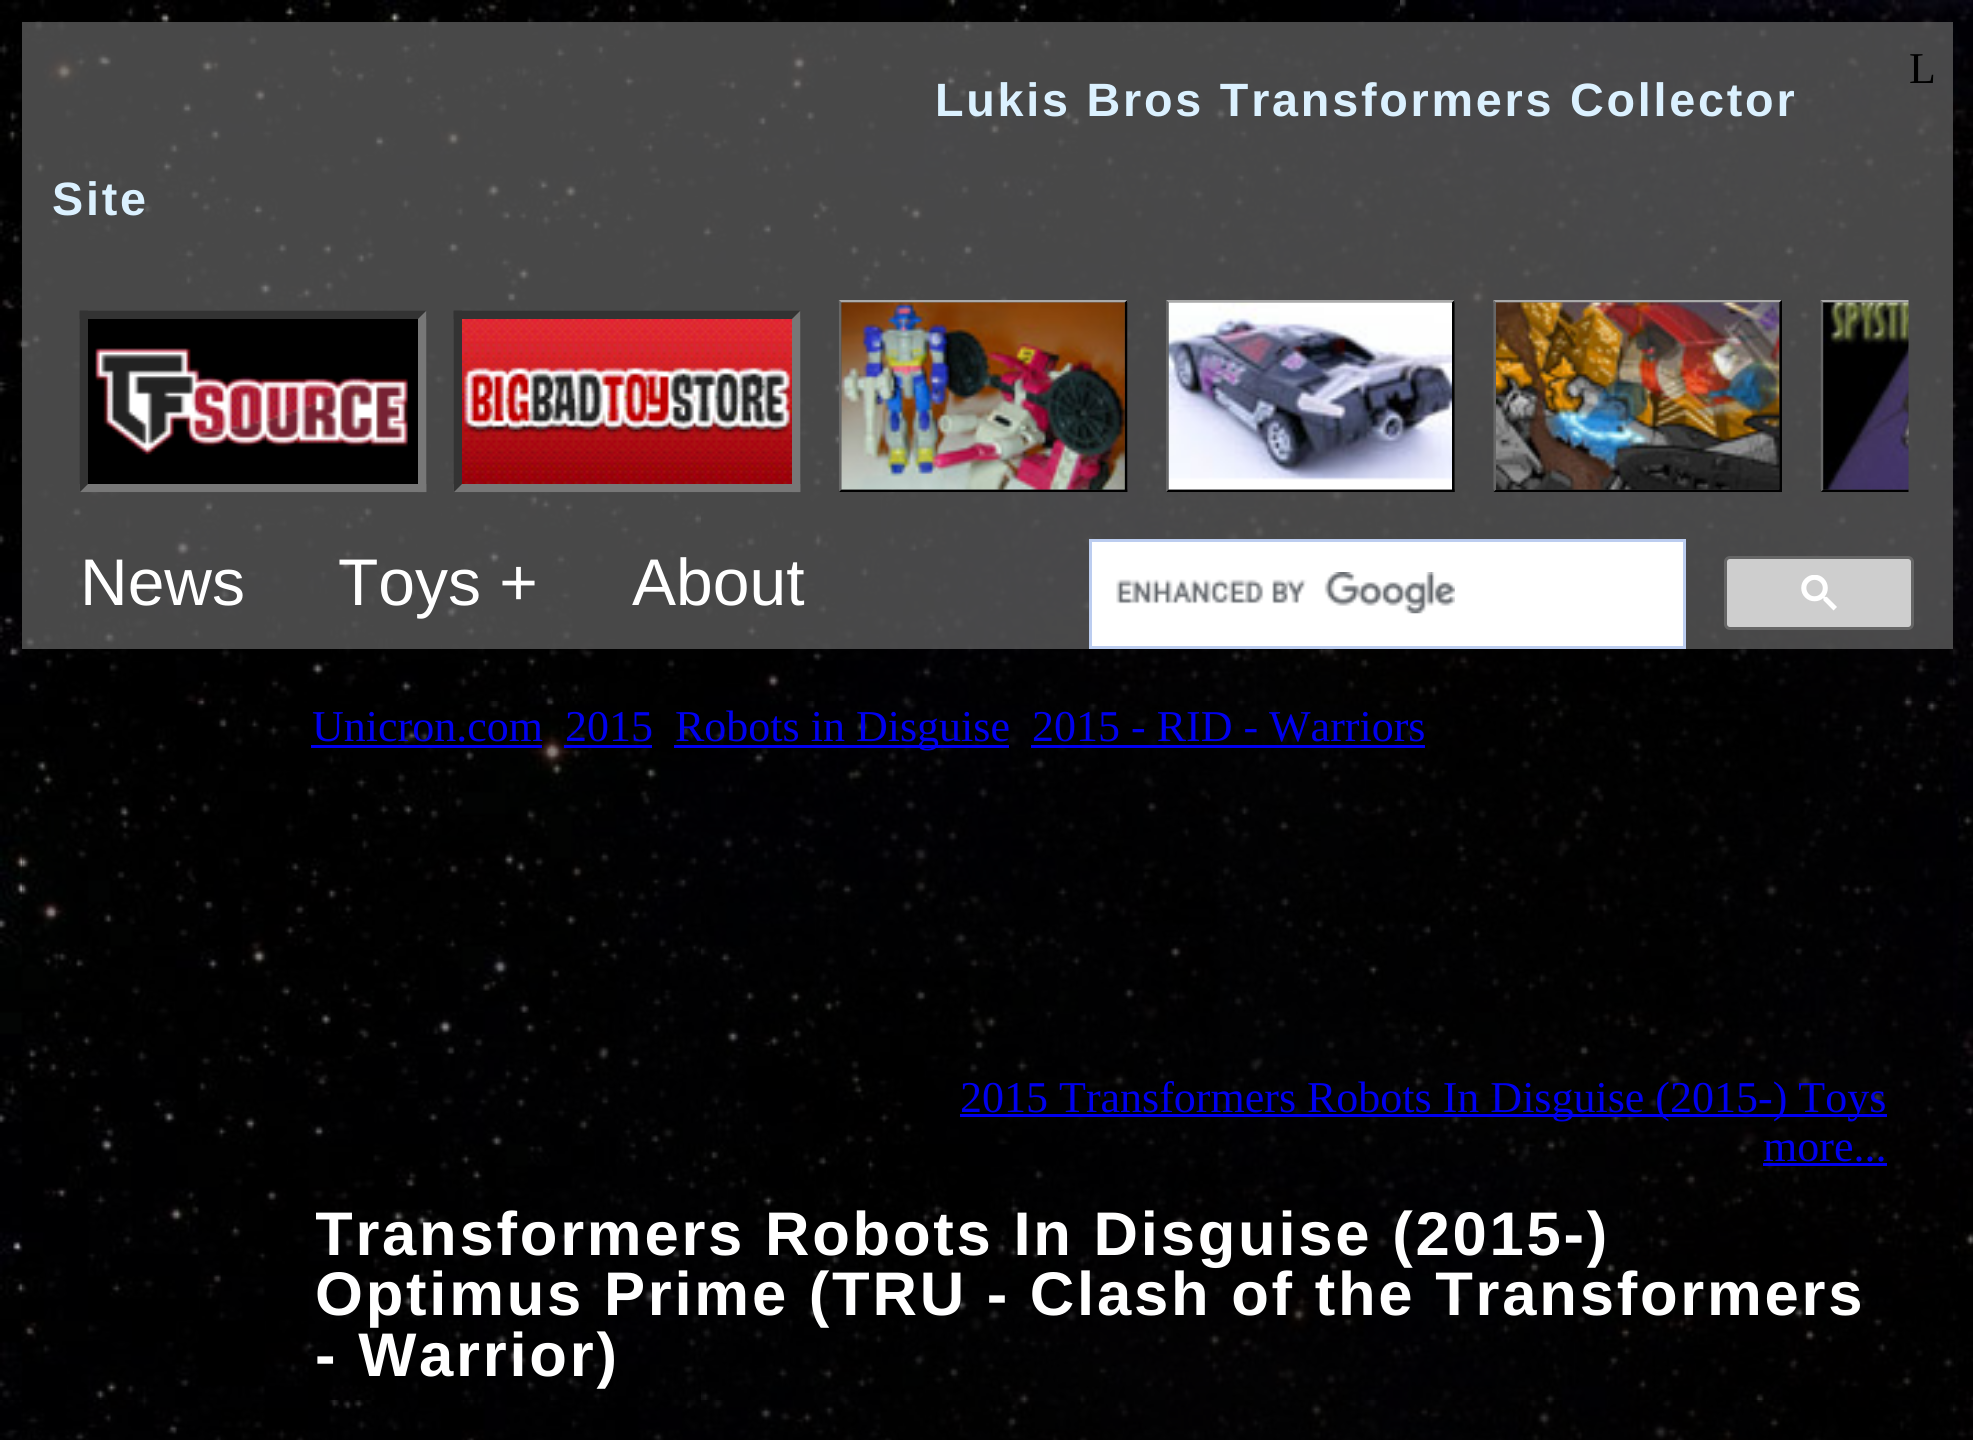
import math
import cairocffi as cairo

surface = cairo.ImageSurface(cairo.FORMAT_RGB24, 1973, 1440)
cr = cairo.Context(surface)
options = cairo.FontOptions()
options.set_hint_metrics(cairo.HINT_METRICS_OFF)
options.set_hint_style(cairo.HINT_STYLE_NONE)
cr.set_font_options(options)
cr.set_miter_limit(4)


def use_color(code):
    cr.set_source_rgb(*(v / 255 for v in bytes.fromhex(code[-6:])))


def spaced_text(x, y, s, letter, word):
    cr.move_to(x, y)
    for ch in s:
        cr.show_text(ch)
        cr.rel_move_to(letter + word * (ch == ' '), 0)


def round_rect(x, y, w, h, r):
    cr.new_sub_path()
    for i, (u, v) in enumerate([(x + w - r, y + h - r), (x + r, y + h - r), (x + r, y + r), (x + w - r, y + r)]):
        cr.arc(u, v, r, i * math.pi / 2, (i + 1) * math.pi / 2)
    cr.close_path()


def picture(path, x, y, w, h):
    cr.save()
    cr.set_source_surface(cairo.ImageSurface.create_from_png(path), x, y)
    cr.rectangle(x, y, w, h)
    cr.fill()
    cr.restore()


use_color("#ffffff")
cr.paint()
picture("img1.png", 0, 0, 1973, 1440)
cr.set_source_rgba(0.471, 0.471, 0.471, 0.6)
cr.rectangle(22, 22, 1931, 627)
cr.fill()
cr.select_font_face("Liberation Serif")
cr.set_font_size(44)
use_color("#000000")
cr.move_to(1909, 83)
cr.show_text("L")
cr.select_font_face("Liberation Sans", cairo.FONT_SLANT_NORMAL, cairo.FONT_WEIGHT_BOLD)
cr.set_font_size(46.75)
use_color("#dbf1ff")
spaced_text(935, 116, "Lukis Bros Transformers Collector", 2.75, 0)
spaced_text(52, 215, "Site", 2.75, 0)
picture("img2.png", 79, 300, 1830, 193)
cr.select_font_face("Liberation Sans")
cr.set_font_size(66)
use_color("#ffffff")
cr.move_to(80, 605)
cr.show_text("News")
cr.move_to(338, 605)
cr.show_text("Toys +")
cr.move_to(632, 605)
cr.show_text("About")
cr.rectangle(1090.5, 540.5, 594, 107)
cr.fill_preserve()
use_color("#bccdf0")
cr.set_line_width(3)
cr.stroke()
picture("img3.png", 1116, 572, 339, 42)
use_color("#cecece")
round_rect(1725.5, 557.5, 187, 71, 4.5)
cr.fill_preserve()
use_color("#666666")
cr.stroke()
picture("img4.png", 1801, 575, 36, 36)
cr.select_font_face("Liberation Serif")
cr.set_font_size(44)
use_color("#0000ee")
cr.move_to(312, 741)
cr.show_text("Unicron.com")
cr.rectangle(311, 745, 231, 3)
cr.fill()
cr.move_to(565, 741)
cr.show_text("2015")
cr.rectangle(564, 745, 88, 3)
cr.fill()
cr.rectangle(674, 745, 335, 3)
cr.fill()
cr.move_to(675, 741)
cr.show_text("Robots in Disguise")
cr.move_to(1032, 741)
cr.show_text("2015 - RID - Warriors")
cr.rectangle(1031, 745, 394, 3)
cr.fill()
cr.rectangle(960, 1114, 927, 3)
cr.fill()
cr.move_to(960, 1112)
cr.show_text("2015 Transformers Robots In Disguise (2015-) Toys")
cr.move_to(1763, 1161)
cr.show_text("more...")
cr.rectangle(1763, 1163, 124, 3)
cr.fill()
cr.save()
cr.rectangle(316, 1205, 1562, 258)
cr.clip()
cr.select_font_face("Liberation Sans", cairo.FONT_SLANT_NORMAL, cairo.FONT_WEIGHT_BOLD)
cr.set_font_size(61.6)
use_color("#ffffff")
spaced_text(315, 1255, "Transformers Robots In Disguise (2015-)", 2.75, 0)
cr.restore()
cr.select_font_face("Liberation Sans", cairo.FONT_SLANT_NORMAL, cairo.FONT_WEIGHT_BOLD)
cr.set_font_size(61.6)
use_color("#ffffff")
spaced_text(315, 1315, "Optimus Prime (TRU - Clash of the Transformers", 2.75, 0)
spaced_text(315, 1376, "- Warrior)", 2.75, 0)
surface.write_to_png("result.png")
